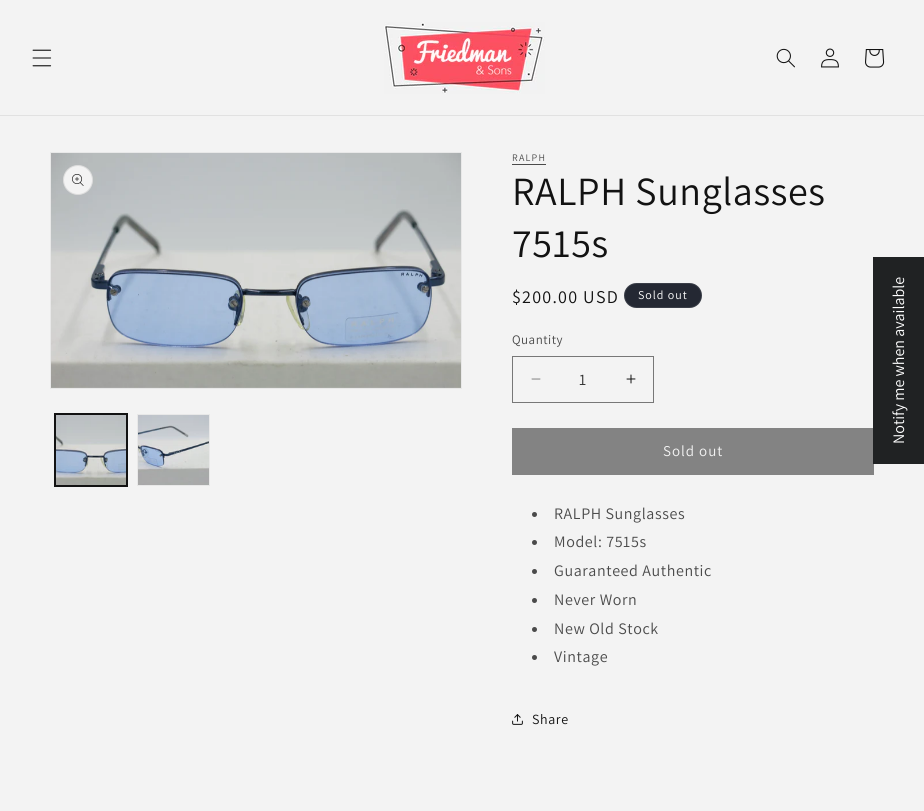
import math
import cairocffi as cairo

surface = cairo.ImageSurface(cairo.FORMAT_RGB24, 924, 811)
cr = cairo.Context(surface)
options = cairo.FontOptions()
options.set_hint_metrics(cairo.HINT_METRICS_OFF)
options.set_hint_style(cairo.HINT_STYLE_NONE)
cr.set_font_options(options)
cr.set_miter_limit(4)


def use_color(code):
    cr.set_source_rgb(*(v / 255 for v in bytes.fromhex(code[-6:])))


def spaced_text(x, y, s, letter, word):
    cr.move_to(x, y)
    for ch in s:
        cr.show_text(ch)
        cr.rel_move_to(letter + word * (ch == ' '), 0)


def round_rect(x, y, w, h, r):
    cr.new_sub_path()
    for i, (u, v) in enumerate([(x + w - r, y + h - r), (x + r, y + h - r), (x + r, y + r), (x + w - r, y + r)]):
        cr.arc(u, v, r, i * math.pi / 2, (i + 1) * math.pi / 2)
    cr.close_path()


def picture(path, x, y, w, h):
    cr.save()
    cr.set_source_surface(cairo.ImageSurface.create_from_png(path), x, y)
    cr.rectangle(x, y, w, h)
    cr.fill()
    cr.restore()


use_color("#f3f3f3")
cr.paint()
use_color("#e1e1e1")
cr.rectangle(0, 115, 924, 1)
cr.fill()
picture("img1.png", 32, 49, 20, 18)
picture("img2.png", 384, 22, 161, 72)
picture("img3.png", 776, 48, 19, 20)
picture("img4.png", 821, 48, 18, 20)
picture("img5.png", 865, 49, 20, 19)
cr.rectangle(50.5, 152.5, 411, 236)
use_color("#e8e8e8")
cr.set_line_width(1)
cr.stroke()
picture("img6.png", 51, 153, 410, 235)
use_color("#f3f3f3")
cr.arc(78, 180, 15, 0, 2 * math.pi)
cr.fill()
cr.arc(78, 180, 14.5, 0, 2 * math.pi)
cr.set_source_rgba(0.071, 0.071, 0.071, 0.1)
cr.stroke()
picture("img7.png", 72, 174, 12, 12)
cr.rectangle(54.5, 413.5, 73, 73)
use_color("#121212")
cr.stroke()
cr.rectangle(55.5, 414.5, 71, 71)
cr.stroke()
picture("img8.png", 56, 415, 70, 70)
cr.rectangle(137.5, 414.5, 72, 71)
use_color("#e8e8e8")
cr.stroke()
picture("img9.png", 138, 415, 71, 70)
cr.select_font_face("Assistant")
cr.set_font_size(10)
use_color("#4a4a4a")
spaced_text(512, 161, "RALPH", 1.25, 0)
cr.rectangle(512, 164, 34, 1)
cr.fill()
cr.set_font_size(40)
use_color("#121212")
spaced_text(512, 205, "RALPH Sunglasses", 0.6, 0)
spaced_text(512, 257, "7515s", 0.6, 0)
cr.set_font_size(18)
spaced_text(512, 303, "$200.00 USD", 1.25, 0)
use_color("#242833")
round_rect(624, 283, 78, 25, 12.5)
cr.fill()
round_rect(624.5, 283.5, 77, 24, 12)
cr.set_source_rgba(1, 1, 1, 0.1)
cr.stroke()
cr.set_font_size(12)
use_color("#ffffff")
spaced_text(638, 299, "Sold out", 1, 0)
cr.set_font_size(13)
use_color("#4a4a4a")
spaced_text(512, 344, "Quantity", 0.5, 0)
picture("img10.png", 531, 378, 10, 2)
picture("img11.png", 626, 374, 10, 10)
cr.rectangle(512.5, 356.5, 141, 46)
use_color("#777777")
cr.stroke()
cr.set_font_size(16)
use_color("#343434")
cr.move_to(579, 385)
cr.show_text("1")
use_color("#838383")
cr.rectangle(512, 428, 362, 47)
cr.fill()
cr.set_font_size(15)
use_color("#f3f3f3")
spaced_text(663, 456, "Sold out", 1, 0)
use_color("#4a4a4a")
cr.new_path()
cr.arc(534.5, 514.5, 2.5, 0, 2 * math.pi)
cr.fill()
cr.set_font_size(16)
spaced_text(554, 519, "RALPH Sunglasses", 0.6, 0)
cr.new_path()
cr.arc(534.5, 542.5, 2.5, 0, 2 * math.pi)
cr.fill()
spaced_text(554, 547, "Model: 7515s", 0.6, 0)
cr.new_path()
cr.arc(534.5, 571.5, 2.5, 0, 2 * math.pi)
cr.fill()
spaced_text(554, 576, "Guaranteed Authentic", 0.6, 0)
cr.new_path()
cr.arc(534.5, 600.5, 2.5, 0, 2 * math.pi)
cr.fill()
spaced_text(554, 605, "Never Worn", 0.6, 0)
cr.new_path()
cr.arc(534.5, 629.5, 2.5, 0, 2 * math.pi)
cr.fill()
spaced_text(554, 634, "New Old Stock", 0.6, 0)
cr.new_path()
cr.arc(534.5, 657.5, 2.5, 0, 2 * math.pi)
cr.fill()
spaced_text(554, 662, "Vintage", 0.6, 0)
picture("img12.png", 512, 714, 11, 11)
cr.set_font_size(14)
use_color("#121212")
spaced_text(532, 724, "Share", 0.6, 0)
use_color("#202223")
cr.rectangle(873, 257, 51, 207)
cr.fill()
cr.set_font_size(16)
use_color("#ffffff")
cr.save()
cr.translate(904, 444)
cr.rotate(-90 * math.pi / 180)
cr.move_to(0, 0)
cr.show_text("Notify me when available")
cr.restore()
surface.write_to_png("result.png")
